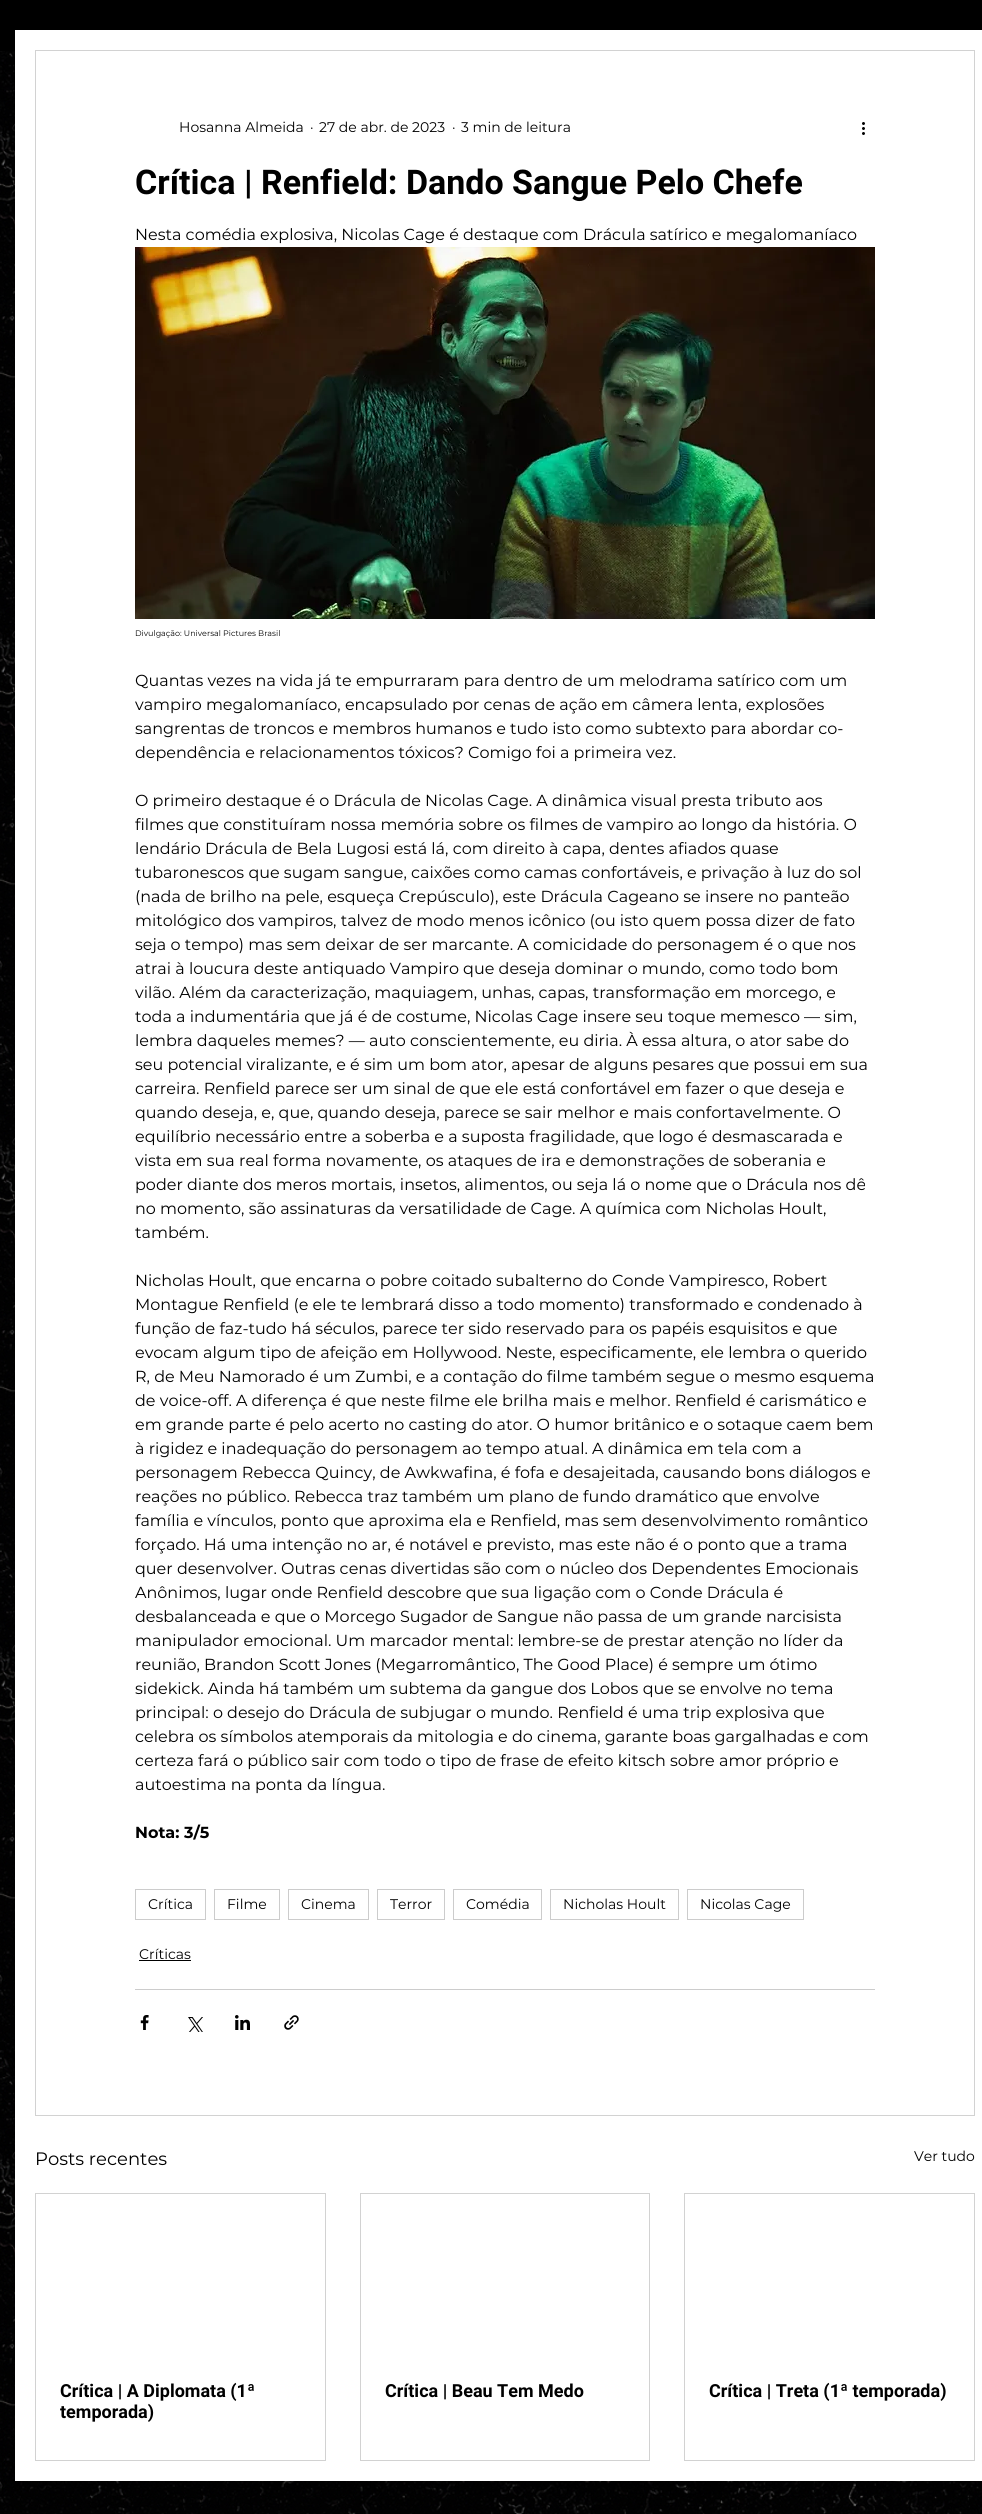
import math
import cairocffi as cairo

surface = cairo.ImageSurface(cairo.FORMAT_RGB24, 982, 2514)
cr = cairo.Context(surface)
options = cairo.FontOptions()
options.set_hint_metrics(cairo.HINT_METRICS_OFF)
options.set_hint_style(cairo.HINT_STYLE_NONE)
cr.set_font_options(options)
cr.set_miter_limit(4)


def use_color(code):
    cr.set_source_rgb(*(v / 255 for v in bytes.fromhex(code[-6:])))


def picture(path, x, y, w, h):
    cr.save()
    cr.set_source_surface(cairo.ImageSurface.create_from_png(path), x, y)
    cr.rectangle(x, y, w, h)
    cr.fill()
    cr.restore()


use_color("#000000")
cr.paint()
picture("img1.png", 0, 51, 982, 2463)
use_color("#ffffff")
cr.rectangle(15, 30, 967, 2451)
cr.fill()
cr.rectangle(35.5, 50.5, 939, 2065)
use_color("#d2d2d2")
cr.set_line_width(1)
cr.stroke()
cr.select_font_face("Montserrat")
cr.set_font_size(14)
use_color("#000000")
cr.move_to(179, 132)
cr.show_text("Hosanna Almeida")
cr.move_to(310, 132)
cr.show_text("·")
cr.move_to(319, 132)
cr.show_text("27 de abr. de 2023")
cr.move_to(452, 132)
cr.show_text("·")
cr.move_to(461, 132)
cr.show_text("3 min de leitura")
picture("img2.png", 862, 122, 3, 13)
cr.select_font_face("Roboto", cairo.FONT_SLANT_NORMAL, cairo.FONT_WEIGHT_BOLD)
cr.set_font_size(34)
cr.move_to(135, 194)
cr.show_text("Crítica | Renfield: Dando Sangue Pelo Chefe")
cr.select_font_face("Montserrat")
cr.set_font_size(16)
cr.move_to(135, 240)
cr.show_text("Nesta comédia explosiva, Nicolas Cage é destaque com Drácula satírico e megalomaníaco")
picture("img3.png", 135, 247, 740, 372)
cr.set_font_size(8)
cr.move_to(135, 636)
cr.show_text("Divulgação: Universal Pictures Brasil")
cr.set_font_size(16)
cr.move_to(135, 686)
cr.show_text("Quantas vezes na vida já te empurraram para dentro de um melodrama satírico com um")
cr.move_to(135, 710)
cr.show_text("vampiro megalomaníaco, encapsulado por cenas de ação em câmera lenta, explosões")
cr.move_to(135, 734)
cr.show_text("sangrentas de troncos e membros humanos e tudo isto como subtexto para abordar co-")
cr.move_to(135, 758)
cr.show_text("dependência e relacionamentos tóxicos? Comigo foi a primeira vez.")
cr.move_to(135, 806)
cr.show_text("O primeiro destaque é o Drácula de Nicolas Cage. A dinâmica visual presta tributo aos")
cr.move_to(135, 830)
cr.show_text("filmes que constituíram nossa memória sobre os filmes de vampiro ao longo da história. O")
cr.move_to(135, 854)
cr.show_text("lendário Drácula de Bela Lugosi está lá, com direito à capa, dentes afiados quase")
cr.move_to(135, 878)
cr.show_text("tubaronescos que sugam sangue, caixões como camas confortáveis, e privação à luz do sol")
cr.move_to(135, 902)
cr.show_text("(nada de brilho na pele, esqueça Crepúsculo), este Drácula Cageano se insere no panteão")
cr.move_to(135, 926)
cr.show_text("mitológico dos vampiros, talvez de modo menos icônico (ou isto quem possa dizer de fato")
cr.move_to(135, 950)
cr.show_text("seja o tempo) mas sem deixar de ser marcante. A comicidade do personagem é o que nos")
cr.move_to(135, 974)
cr.show_text("atrai à loucura deste antiquado Vampiro que deseja dominar o mundo, como todo bom")
cr.move_to(135, 998)
cr.show_text("vilão. Além da caracterização, maquiagem, unhas, capas, transformação em morcego, e")
cr.move_to(135, 1022)
cr.show_text("toda a indumentária que já é de costume, Nicolas Cage insere seu toque memesco — sim,")
cr.move_to(135, 1046)
cr.show_text("lembra daqueles memes? — auto conscientemente, eu diria. À essa altura, o ator sabe do")
cr.move_to(135, 1070)
cr.show_text("seu potencial viralizante, e é sim um bom ator, apesar de alguns pesares que possui em sua")
cr.move_to(135, 1094)
cr.show_text("carreira. Renfield parece ser um sinal de que ele está confortável em fazer o que deseja e")
cr.move_to(135, 1118)
cr.show_text("quando deseja, e, que, quando deseja, parece se sair melhor e mais confortavelmente. O")
cr.move_to(135, 1142)
cr.show_text("equilíbrio necessário entre a soberba e a suposta fragilidade, que logo é desmascarada e")
cr.move_to(135, 1166)
cr.show_text("vista em sua real forma novamente, os ataques de ira e demonstrações de soberania e")
cr.move_to(135, 1190)
cr.show_text("poder diante dos meros mortais, insetos, alimentos, ou seja lá o nome que o Drácula nos dê")
cr.move_to(135, 1214)
cr.show_text("no momento, são assinaturas da versatilidade de Cage. A química com Nicholas Hoult,")
cr.move_to(135, 1238)
cr.show_text("também.")
cr.move_to(135, 1286)
cr.show_text("Nicholas Hoult, que encarna o pobre coitado subalterno do Conde Vampiresco, Robert")
cr.move_to(135, 1310)
cr.show_text("Montague Renfield (e ele te lembrará disso a todo momento) transformado e condenado à")
cr.move_to(135, 1334)
cr.show_text("função de faz-tudo há séculos, parece ter sido reservado para os papéis esquisitos e que")
cr.move_to(135, 1358)
cr.show_text("evocam algum tipo de afeição em Hollywood. Neste, especificamente, ele lembra o querido")
cr.move_to(135, 1382)
cr.show_text("R, de Meu Namorado é um Zumbi, e a contação do filme também segue o mesmo esquema")
cr.move_to(135, 1406)
cr.show_text("de voice-off. A diferença é que neste filme ele brilha mais e melhor. Renfield é carismático e")
cr.move_to(135, 1430)
cr.show_text("em grande parte é pelo acerto no casting do ator. O humor britânico e o sotaque caem bem")
cr.move_to(135, 1454)
cr.show_text("à rigidez e inadequação do personagem ao tempo atual. A dinâmica em tela com a")
cr.move_to(135, 1478)
cr.show_text("personagem Rebecca Quincy, de Awkwafina, é fofa e desajeitada, causando bons diálogos e")
cr.move_to(135, 1502)
cr.show_text("reações no público. Rebecca traz também um plano de fundo dramático que envolve")
cr.move_to(135, 1526)
cr.show_text("família e vínculos, ponto que aproxima ela e Renfield, mas sem desenvolvimento romântico")
cr.move_to(135, 1550)
cr.show_text("forçado. Há uma intenção no ar, é notável e previsto, mas este não é o ponto que a trama")
cr.move_to(135, 1574)
cr.show_text("quer desenvolver. Outras cenas divertidas são com o núcleo dos Dependentes Emocionais")
cr.move_to(135, 1598)
cr.show_text("Anônimos, lugar onde Renfield descobre que sua ligação com o Conde Drácula é")
cr.move_to(135, 1622)
cr.show_text("desbalanceada e que o Morcego Sugador de Sangue não passa de um grande narcisista")
cr.move_to(135, 1646)
cr.show_text("manipulador emocional. Um marcador mental: lembre-se de prestar atenção no líder da")
cr.move_to(135, 1670)
cr.show_text("reunião, Brandon Scott Jones (Megarromântico, The Good Place) é sempre um ótimo")
cr.move_to(135, 1694)
cr.show_text("sidekick. Ainda há também um subtema da gangue dos Lobos que se envolve no tema")
cr.move_to(135, 1718)
cr.show_text("principal: o desejo do Drácula de subjugar o mundo. Renfield é uma trip explosiva que")
cr.move_to(135, 1742)
cr.show_text("celebra os símbolos atemporais da mitologia e do cinema, garante boas gargalhadas e com")
cr.move_to(135, 1766)
cr.show_text("certeza fará o público sair com todo o tipo de frase de efeito kitsch sobre amor próprio e")
cr.move_to(135, 1790)
cr.show_text("autoestima na ponta da língua.")
cr.select_font_face("Montserrat", cairo.FONT_SLANT_NORMAL, cairo.FONT_WEIGHT_BOLD)
cr.move_to(135, 1838)
cr.show_text("Nota: 3/5")
cr.rectangle(135.5, 1889.5, 70, 30)
use_color("#cccccc")
cr.stroke()
cr.select_font_face("Montserrat")
cr.set_font_size(14)
use_color("#000000")
cr.move_to(148, 1909)
cr.show_text("Crítica")
cr.rectangle(214.5, 1889.5, 65, 30)
use_color("#cccccc")
cr.stroke()
use_color("#000000")
cr.move_to(227, 1909)
cr.show_text("Filme")
cr.rectangle(288.5, 1889.5, 80, 30)
use_color("#cccccc")
cr.stroke()
use_color("#000000")
cr.move_to(301, 1909)
cr.show_text("Cinema")
cr.rectangle(377.5, 1889.5, 67, 30)
use_color("#cccccc")
cr.stroke()
use_color("#000000")
cr.move_to(390, 1909)
cr.show_text("Terror")
cr.rectangle(453.5, 1889.5, 88, 30)
use_color("#cccccc")
cr.stroke()
use_color("#000000")
cr.move_to(466, 1909)
cr.show_text("Comédia")
cr.rectangle(550.5, 1889.5, 128, 30)
use_color("#cccccc")
cr.stroke()
use_color("#000000")
cr.move_to(563, 1909)
cr.show_text("Nicholas Hoult")
cr.rectangle(687.5, 1889.5, 116, 30)
use_color("#cccccc")
cr.stroke()
use_color("#000000")
cr.move_to(700, 1909)
cr.show_text("Nicolas Cage")
cr.move_to(139, 1959)
cr.show_text("Críticas")
cr.rectangle(139, 1960, 52, 1)
cr.fill()
use_color("#cccccc")
cr.rectangle(135, 1989, 740, 1)
cr.fill()
picture("img4.png", 140, 2015, 9, 15)
picture("img5.png", 188, 2017, 15, 15)
picture("img6.png", 235, 2015, 15, 15)
picture("img7.png", 284, 2015, 15, 15)
cr.set_font_size(18)
use_color("#000000")
cr.move_to(35, 2165)
cr.show_text("Posts recentes")
cr.set_font_size(14)
cr.move_to(914, 2161)
cr.show_text("Ver tudo")
cr.rectangle(35.5, 2193.5, 290, 267)
use_color("#d2d2d2")
cr.stroke()
cr.select_font_face("Roboto", cairo.FONT_SLANT_NORMAL, cairo.FONT_WEIGHT_BOLD)
cr.set_font_size(18)
use_color("#000000")
cr.move_to(60, 2397)
cr.show_text("Crítica | A Diplomata (1ª")
cr.move_to(60, 2418)
cr.show_text("temporada)")
cr.rectangle(360.5, 2193.5, 289, 267)
use_color("#d2d2d2")
cr.stroke()
use_color("#000000")
cr.move_to(385, 2397)
cr.show_text("Crítica | Beau Tem Medo")
cr.rectangle(684.5, 2193.5, 290, 267)
use_color("#d2d2d2")
cr.stroke()
use_color("#000000")
cr.move_to(709, 2397)
cr.show_text("Crítica | Treta (1ª temporada)")
surface.write_to_png("result.png")
